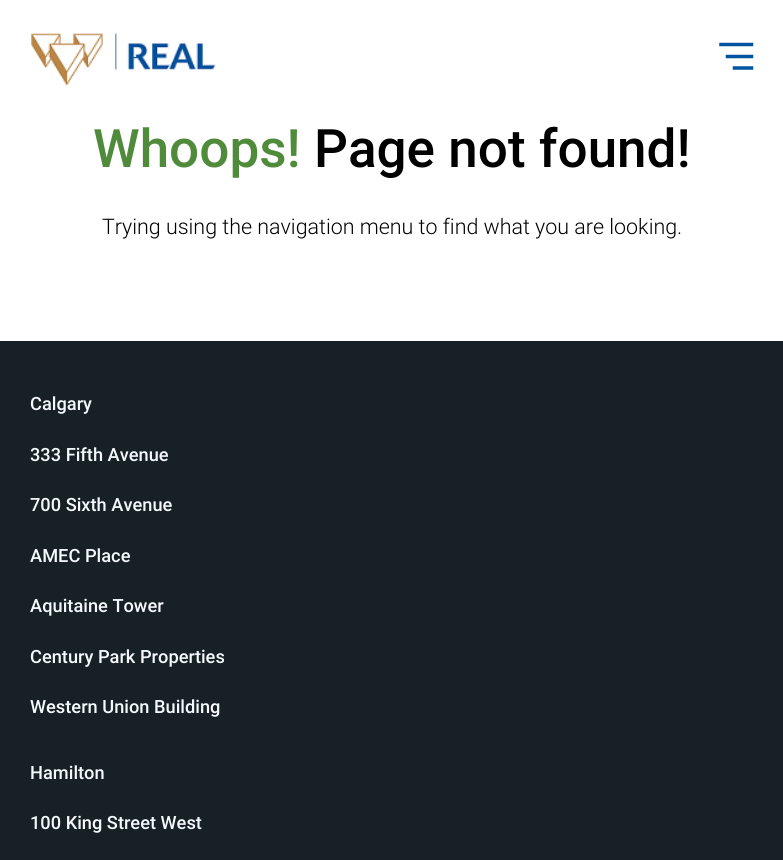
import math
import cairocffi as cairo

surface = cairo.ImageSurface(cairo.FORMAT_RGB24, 783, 860)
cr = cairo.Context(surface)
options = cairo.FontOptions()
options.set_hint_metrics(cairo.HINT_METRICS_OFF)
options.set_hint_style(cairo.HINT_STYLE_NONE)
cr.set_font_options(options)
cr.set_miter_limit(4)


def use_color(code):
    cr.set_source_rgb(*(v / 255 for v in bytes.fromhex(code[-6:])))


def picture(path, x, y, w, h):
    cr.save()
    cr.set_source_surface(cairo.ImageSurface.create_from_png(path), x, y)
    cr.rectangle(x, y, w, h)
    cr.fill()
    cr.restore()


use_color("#ffffff")
cr.paint()
picture("img1.png", 31, 33, 185, 53)
cr.new_path()
cr.move_to(721, 44.5)
cr.line_to(751.5, 44.5)
cr.move_to(727.5, 56.5)
cr.line_to(751.5, 56.5)
cr.move_to(734.5, 68)
cr.line_to(751.5, 68)
use_color("#00549f")
cr.set_line_width(3.5)
cr.set_line_cap(cairo.LINE_CAP_SQUARE)
cr.stroke()
cr.select_font_face("Roboto Medium")
cr.set_font_size(53)
use_color("#508b3c")
cr.move_to(93, 167)
cr.show_text("Whoops!")
use_color("#000000")
cr.move_to(314, 167)
cr.show_text("Page not found!")
cr.select_font_face("Roboto Light")
cr.set_font_size(21.45)
cr.move_to(102, 234)
cr.show_text("Trying using the navigation menu to find what you are looking.")
use_color("#182027")
cr.rectangle(0, 341, 783, 519)
cr.fill()
cr.select_font_face("Roboto Medium")
cr.set_font_size(18.25)
use_color("#f5f9ff")
cr.move_to(30, 410)
cr.show_text("Calgary")
cr.move_to(30, 461)
cr.show_text("333 Fifth Avenue")
cr.move_to(30, 511)
cr.show_text("700 Sixth Avenue")
cr.move_to(30, 562)
cr.show_text("AMEC Place")
cr.move_to(30, 612)
cr.show_text("Aquitaine Tower")
cr.move_to(30, 663)
cr.show_text("Century Park Properties")
cr.move_to(30, 713)
cr.show_text("Western Union Building")
cr.move_to(30, 779)
cr.show_text("Hamilton")
cr.move_to(30, 829)
cr.show_text("100 King Street West")
surface.write_to_png("result.png")
